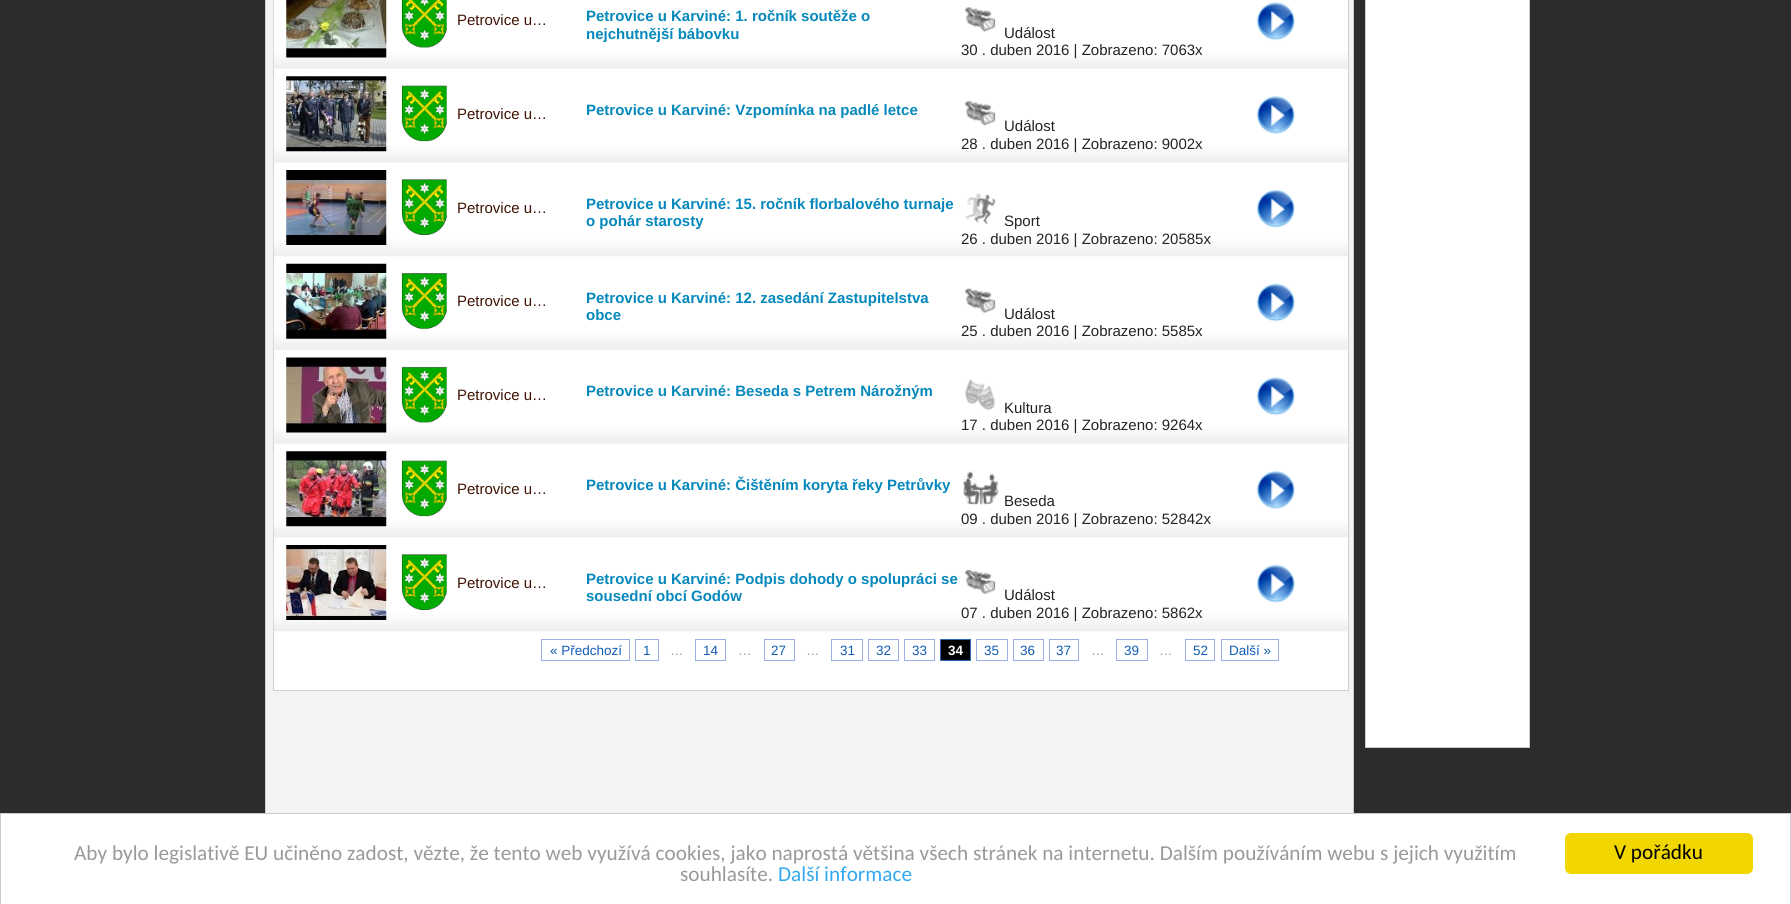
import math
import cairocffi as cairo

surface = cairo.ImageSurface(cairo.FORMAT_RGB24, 1791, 904)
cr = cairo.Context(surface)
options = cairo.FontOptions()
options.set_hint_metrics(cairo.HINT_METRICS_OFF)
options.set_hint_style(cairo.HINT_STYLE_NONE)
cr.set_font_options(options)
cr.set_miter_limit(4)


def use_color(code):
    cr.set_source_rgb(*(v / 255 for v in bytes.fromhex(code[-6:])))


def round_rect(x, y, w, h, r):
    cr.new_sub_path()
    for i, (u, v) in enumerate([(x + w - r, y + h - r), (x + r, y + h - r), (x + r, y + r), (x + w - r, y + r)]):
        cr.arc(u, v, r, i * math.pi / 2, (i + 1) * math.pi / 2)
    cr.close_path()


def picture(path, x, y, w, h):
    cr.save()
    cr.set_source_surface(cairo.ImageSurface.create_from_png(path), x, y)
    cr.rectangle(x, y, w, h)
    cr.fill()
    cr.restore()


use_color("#2c2c2c")
cr.paint()
use_color("#f3f3f3")
cr.rectangle(266, 0, 1087, 813)
cr.fill()
cr.rectangle(265.5, -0.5, 1088, 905)
use_color("#cecece")
cr.set_line_width(1)
cr.stroke()
use_color("#ffffff")
cr.rectangle(273.5, -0.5, 1075, 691)
cr.fill_preserve()
use_color("#cecece")
cr.stroke()
picture("img1.png", 273, 0, 1075, 70)
picture("img2.png", 286, 0, 101, 58)
picture("img3.png", 401, 0, 46, 48)
cr.select_font_face("Liberation Sans")
cr.set_font_size(15)
use_color("#3f1202")
cr.move_to(457, 25)
cr.show_text("Petrovice u…")
cr.select_font_face("Liberation Sans", cairo.FONT_SLANT_NORMAL, cairo.FONT_WEIGHT_BOLD)
use_color("#0588bc")
cr.move_to(586, 21)
cr.show_text("Petrovice u Karviné: 1. ročník soutěže o")
cr.move_to(586, 39)
cr.show_text("nejchutnější bábovku")
picture("img4.png", 1256, 2, 39, 39)
picture("img5.png", 964, 7, 32, 25)
cr.select_font_face("Liberation Sans")
use_color("#232323")
cr.move_to(1004, 38)
cr.show_text("Událost")
cr.move_to(961, 55)
cr.show_text("30 . duben 2016 | Zobrazeno: 7063x")
picture("img6.png", 273, 76, 1075, 88)
picture("img7.png", 286, 76, 101, 76)
picture("img8.png", 401, 85, 46, 57)
use_color("#3f1202")
cr.move_to(457, 119)
cr.show_text("Petrovice u…")
cr.select_font_face("Liberation Sans", cairo.FONT_SLANT_NORMAL, cairo.FONT_WEIGHT_BOLD)
use_color("#0588bc")
cr.move_to(586, 115)
cr.show_text("Petrovice u Karviné: Vzpomínka na padlé letce")
picture("img9.png", 1256, 96, 40, 38)
picture("img10.png", 964, 101, 32, 25)
cr.select_font_face("Liberation Sans")
use_color("#232323")
cr.move_to(1004, 131)
cr.show_text("Událost")
cr.move_to(961, 149)
cr.show_text("28 . duben 2016 | Zobrazeno: 9002x")
picture("img11.png", 273, 170, 1075, 88)
picture("img12.png", 286, 170, 101, 75)
picture("img13.png", 401, 179, 46, 56)
use_color("#3f1202")
cr.move_to(457, 213)
cr.show_text("Petrovice u…")
cr.select_font_face("Liberation Sans", cairo.FONT_SLANT_NORMAL, cairo.FONT_WEIGHT_BOLD)
use_color("#0588bc")
cr.move_to(586, 209)
cr.show_text("Petrovice u Karviné: 15. ročník florbalového turnaje")
cr.move_to(586, 226)
cr.show_text("o pohár starosty")
picture("img14.png", 1256, 189, 39, 39)
picture("img15.png", 965, 193, 31, 31)
cr.select_font_face("Liberation Sans")
use_color("#232323")
cr.move_to(1004, 226)
cr.show_text("Sport")
cr.move_to(961, 244)
cr.show_text("26 . duben 2016 | Zobrazeno: 20585x")
picture("img16.png", 273, 264, 1075, 87)
picture("img17.png", 286, 263, 101, 76)
picture("img18.png", 401, 273, 46, 56)
use_color("#3f1202")
cr.move_to(457, 306)
cr.show_text("Petrovice u…")
cr.select_font_face("Liberation Sans", cairo.FONT_SLANT_NORMAL, cairo.FONT_WEIGHT_BOLD)
use_color("#0588bc")
cr.move_to(586, 303)
cr.show_text("Petrovice u Karviné: 12. zasedání Zastupitelstva")
cr.move_to(586, 320)
cr.show_text("obce")
picture("img19.png", 1256, 283, 39, 39)
picture("img20.png", 964, 288, 32, 25)
cr.select_font_face("Liberation Sans")
use_color("#232323")
cr.move_to(1004, 319)
cr.show_text("Událost")
cr.move_to(961, 336)
cr.show_text("25 . duben 2016 | Zobrazeno: 5585x")
picture("img21.png", 273, 357, 1075, 88)
picture("img22.png", 286, 357, 101, 76)
picture("img23.png", 401, 366, 46, 57)
use_color("#3f1202")
cr.move_to(457, 400)
cr.show_text("Petrovice u…")
cr.select_font_face("Liberation Sans", cairo.FONT_SLANT_NORMAL, cairo.FONT_WEIGHT_BOLD)
use_color("#0588bc")
cr.move_to(586, 396)
cr.show_text("Petrovice u Karviné: Beseda s Petrem Nárožným")
picture("img4.png", 1256, 377, 39, 39)
picture("img24.png", 965, 379, 31, 32)
cr.select_font_face("Liberation Sans")
use_color("#232323")
cr.move_to(1004, 413)
cr.show_text("Kultura")
cr.move_to(961, 430)
cr.show_text("17 . duben 2016 | Zobrazeno: 9264x")
picture("img6.png", 273, 451, 1075, 88)
picture("img25.png", 286, 451, 101, 76)
picture("img8.png", 401, 460, 46, 57)
use_color("#3f1202")
cr.move_to(457, 494)
cr.show_text("Petrovice u…")
cr.select_font_face("Liberation Sans", cairo.FONT_SLANT_NORMAL, cairo.FONT_WEIGHT_BOLD)
use_color("#0588bc")
cr.move_to(586, 490)
cr.show_text("Petrovice u Karviné: Čištěním koryta řeky Petrůvky")
picture("img9.png", 1256, 471, 40, 38)
picture("img26.png", 962, 470, 37, 35)
cr.select_font_face("Liberation Sans")
use_color("#232323")
cr.move_to(1004, 506)
cr.show_text("Beseda")
cr.move_to(961, 524)
cr.show_text("09 . duben 2016 | Zobrazeno: 52842x")
picture("img27.png", 273, 545, 1075, 88)
picture("img28.png", 286, 545, 101, 75)
picture("img29.png", 401, 554, 46, 56)
use_color("#3f1202")
cr.move_to(457, 588)
cr.show_text("Petrovice u…")
cr.select_font_face("Liberation Sans", cairo.FONT_SLANT_NORMAL, cairo.FONT_WEIGHT_BOLD)
use_color("#0588bc")
cr.move_to(586, 584)
cr.show_text("Petrovice u Karviné: Podpis dohody o spolupráci se")
cr.move_to(586, 601)
cr.show_text("sousední obcí Godów")
picture("img14.png", 1256, 564, 39, 39)
picture("img30.png", 964, 569, 32, 25)
cr.select_font_face("Liberation Sans")
use_color("#232323")
cr.move_to(1004, 600)
cr.show_text("Událost")
cr.move_to(961, 618)
cr.show_text("07 . duben 2016 | Zobrazeno: 5862x")
cr.rectangle(541.5, 639.5, 88, 21)
use_color("#9aafe5")
cr.stroke()
cr.set_font_size(13.5)
use_color("#105cb6")
cr.move_to(550, 655)
cr.show_text("« Předchozí")
cr.rectangle(635.5, 639.5, 23, 21)
use_color("#9aafe5")
cr.stroke()
use_color("#105cb6")
cr.move_to(643, 655)
cr.show_text("1")
use_color("#999999")
cr.move_to(670, 655)
cr.show_text("…")
cr.rectangle(695.5, 639.5, 30, 21)
use_color("#9aafe5")
cr.stroke()
use_color("#105cb6")
cr.move_to(703, 655)
cr.show_text("14")
use_color("#999999")
cr.move_to(738, 655)
cr.show_text("…")
cr.rectangle(764.5, 639.5, 30, 21)
use_color("#9aafe5")
cr.stroke()
use_color("#105cb6")
cr.move_to(771, 655)
cr.show_text("27")
use_color("#999999")
cr.move_to(806, 655)
cr.show_text("…")
cr.rectangle(831.5, 639.5, 31, 21)
use_color("#9aafe5")
cr.stroke()
use_color("#105cb6")
cr.move_to(840, 655)
cr.show_text("31")
cr.rectangle(868.5, 639.5, 30, 21)
use_color("#9aafe5")
cr.stroke()
use_color("#105cb6")
cr.move_to(876, 655)
cr.show_text("32")
cr.rectangle(904.5, 639.5, 30, 21)
use_color("#9aafe5")
cr.stroke()
use_color("#105cb6")
cr.move_to(912, 655)
cr.show_text("33")
use_color("#000000")
cr.rectangle(940.5, 639.5, 30, 21)
cr.fill_preserve()
use_color("#2e6ab1")
cr.stroke()
cr.select_font_face("Liberation Sans", cairo.FONT_SLANT_NORMAL, cairo.FONT_WEIGHT_BOLD)
use_color("#ffffff")
cr.move_to(948, 655)
cr.show_text("34")
cr.rectangle(976.5, 639.5, 31, 21)
use_color("#9aafe5")
cr.stroke()
cr.select_font_face("Liberation Sans")
use_color("#105cb6")
cr.move_to(984, 655)
cr.show_text("35")
cr.rectangle(1013.5, 639.5, 30, 21)
use_color("#9aafe5")
cr.stroke()
use_color("#105cb6")
cr.move_to(1020, 655)
cr.show_text("36")
cr.rectangle(1049.5, 639.5, 29, 21)
use_color("#9aafe5")
cr.stroke()
use_color("#105cb6")
cr.move_to(1056, 655)
cr.show_text("37")
use_color("#999999")
cr.move_to(1091, 655)
cr.show_text("…")
cr.rectangle(1116.5, 639.5, 31, 21)
use_color("#9aafe5")
cr.stroke()
use_color("#105cb6")
cr.move_to(1124, 655)
cr.show_text("39")
use_color("#999999")
cr.move_to(1159, 655)
cr.show_text("…")
cr.rectangle(1185.5, 639.5, 29, 21)
use_color("#9aafe5")
cr.stroke()
use_color("#105cb6")
cr.move_to(1193, 655)
cr.show_text("52")
cr.rectangle(1221.5, 639.5, 57, 21)
use_color("#9aafe5")
cr.stroke()
use_color("#105cb6")
cr.move_to(1229, 655)
cr.show_text("Další »")
use_color("#ffffff")
cr.rectangle(1365.5, -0.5, 164, 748)
cr.fill_preserve()
use_color("#cecece")
cr.stroke()
use_color("#ffffff")
cr.rectangle(0.5, 813.5, 1790, 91)
cr.fill_preserve()
use_color("#cccccc")
cr.stroke()
cr.select_font_face("Carlito")
cr.set_font_size(21.25)
use_color("#999999")
cr.move_to(74, 860)
cr.show_text("Aby bylo legislativě EU učiněno zadost, vězte, že tento web využívá cookies, jako naprostá většina všech stránek na internetu. Dalším používáním webu s jejich využitím")
cr.move_to(680, 881)
cr.show_text("souhlasíte.")
use_color("#31a8f0")
cr.move_to(778, 881)
cr.show_text("Další informace")
use_color("#f1d600")
round_rect(1565, 833, 188, 41, 6)
cr.fill()
use_color("#000000")
cr.move_to(1614, 859)
cr.show_text("V pořádku")
surface.write_to_png("result.png")
